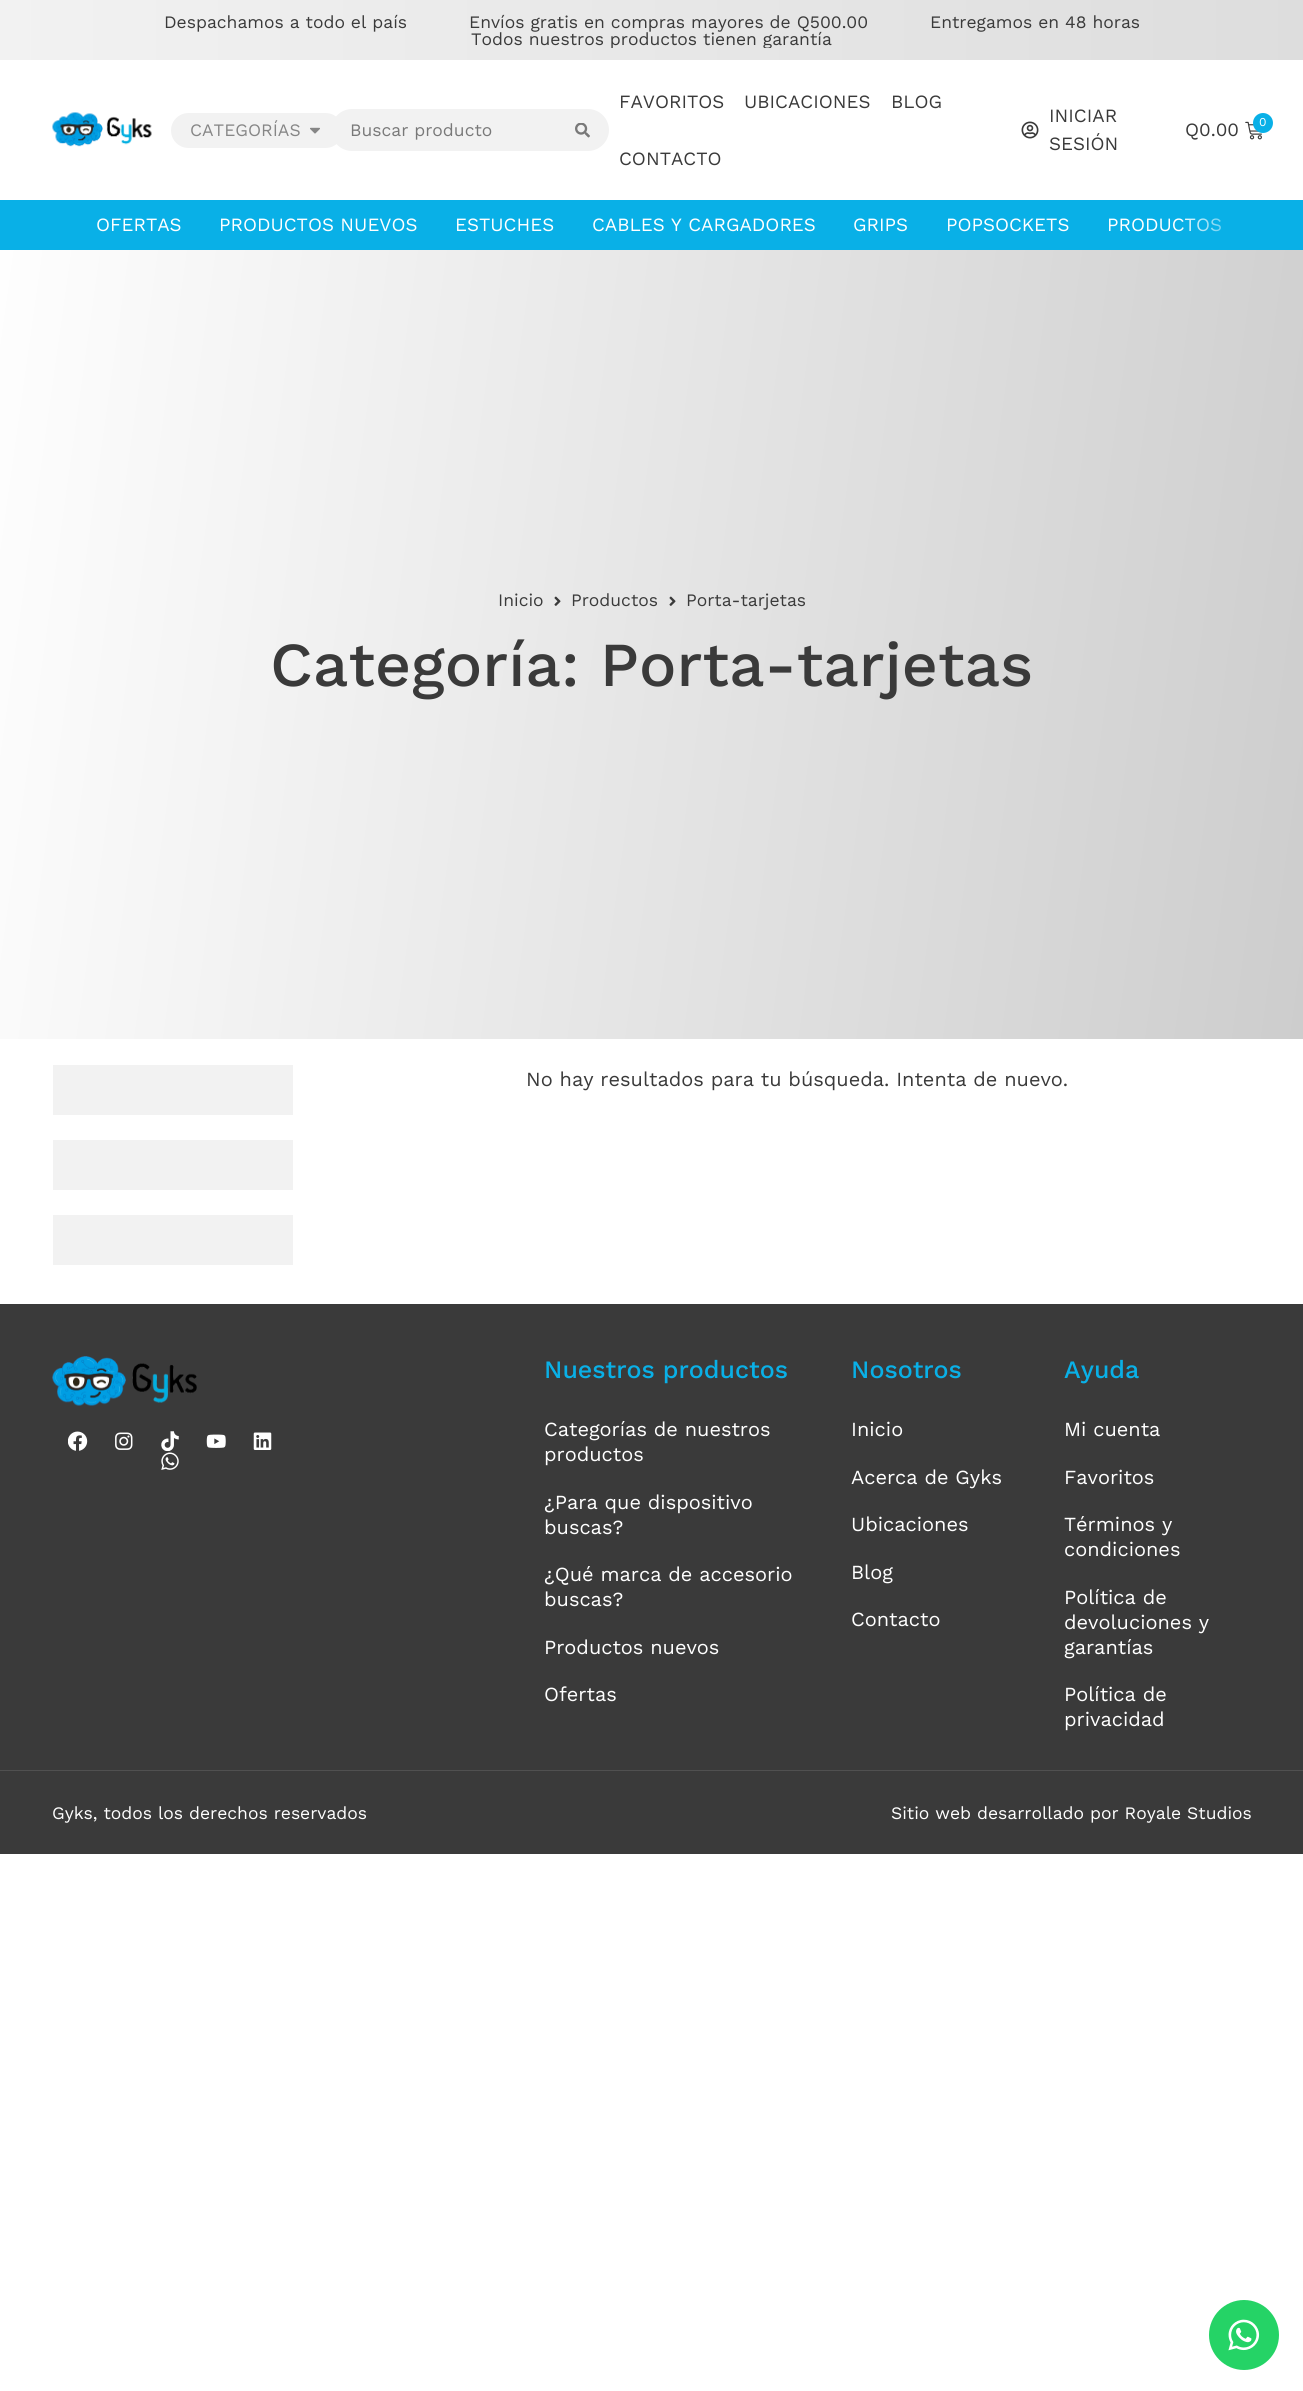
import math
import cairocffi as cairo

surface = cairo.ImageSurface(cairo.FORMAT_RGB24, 1303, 2391)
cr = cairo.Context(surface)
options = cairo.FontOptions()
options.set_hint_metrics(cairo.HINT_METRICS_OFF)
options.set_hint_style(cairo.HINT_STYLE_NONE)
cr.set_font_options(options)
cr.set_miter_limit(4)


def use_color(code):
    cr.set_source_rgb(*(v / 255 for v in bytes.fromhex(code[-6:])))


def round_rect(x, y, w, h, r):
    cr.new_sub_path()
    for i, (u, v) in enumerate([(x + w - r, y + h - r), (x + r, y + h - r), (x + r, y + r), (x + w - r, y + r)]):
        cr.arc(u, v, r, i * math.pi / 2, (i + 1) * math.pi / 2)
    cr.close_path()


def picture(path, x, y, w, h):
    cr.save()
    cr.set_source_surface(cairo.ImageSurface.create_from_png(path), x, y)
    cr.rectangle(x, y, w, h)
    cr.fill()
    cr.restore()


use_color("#ffffff")
cr.paint()
gradient = cairo.LinearGradient(0, 30, 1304, 30)
gradient.add_color_stop_rgba(0, 0.949, 0.949, 0.949, 1)
gradient.add_color_stop_rgba(1, 0.867, 0.867, 0.867, 1)
cr.set_source(gradient)
cr.rectangle(0, 0, 1303, 60)
cr.fill()
cr.select_font_face("Work Sans")
cr.set_font_size(17.5)
use_color("#3a3a3a")
cr.move_to(164, 28)
cr.show_text("Despachamos a todo el país")
cr.move_to(469, 28)
cr.show_text("Envíos gratis en compras mayores de Q500.00")
cr.move_to(930, 28)
cr.show_text("Entregamos en 48 horas")
cr.save()
cr.rectangle(64, 13, 1176, 35)
cr.clip()
cr.move_to(471, 45)
cr.show_text("Todos nuestros productos tienen garantía")
cr.restore()
picture("img1.png", 52, 112, 100, 35)
use_color("#f2f2f2")
round_rect(171, 113, 172, 35, 17.5)
cr.fill()
use_color("#868686")
cr.move_to(190, 136)
cr.show_text("CATEGORÍAS")
picture("img2.png", 310, 127, 10, 7)
use_color("#f2f2f2")
cr.new_path()
cr.move_to(352, 109)
cr.line_to(575, 109)
cr.line_to(575, 151)
cr.line_to(352, 151)
cr.curve_to(340.5, 151, 331, 141.5, 331, 130)
cr.curve_to(331, 118.5, 340.5, 109, 352, 109)
cr.close_path()
cr.fill()
use_color("#797979")
cr.move_to(350, 136)
cr.show_text("Buscar producto")
use_color("#f2f2f2")
cr.new_path()
cr.move_to(575, 109)
cr.line_to(588, 109)
cr.curve_to(599.5, 109, 609, 118.5, 609, 130)
cr.curve_to(609, 141.5, 599.5, 151, 588, 151)
cr.line_to(575, 151)
cr.close_path()
cr.fill()
picture("img3.png", 575, 123, 15, 15)
cr.set_font_size(18.75)
use_color("#3a3a3a")
cr.move_to(619, 108)
cr.show_text("FAVORITOS")
cr.move_to(744, 108)
cr.show_text("UBICACIONES")
cr.move_to(891, 108)
cr.show_text("BLOG")
cr.move_to(619, 165)
cr.show_text("CONTACTO")
picture("img4.png", 1021, 121, 18, 18)
cr.move_to(1049, 122)
cr.show_text("INICIAR")
cr.move_to(1049, 150)
cr.show_text("SESIÓN")
picture("img5.png", 1245, 121, 17, 19)
use_color("#09b0e7")
cr.arc(1263, 123, 10, 0, 2 * math.pi)
cr.fill()
cr.set_font_size(12)
use_color("#ffffff")
cr.move_to(1259, 126)
cr.show_text("0")
cr.set_font_size(18.75)
use_color("#3a3a3a")
cr.move_to(1185, 136)
cr.show_text("Q0.00")
use_color("#09b0e7")
cr.rectangle(0, 200, 1303, 50)
cr.fill()
use_color("#ffffff")
cr.move_to(96, 231)
cr.show_text("OFERTAS")
cr.move_to(219, 231)
cr.show_text("PRODUCTOS NUEVOS")
cr.move_to(455, 231)
cr.show_text("ESTUCHES")
cr.move_to(592, 231)
cr.show_text("CABLES Y CARGADORES")
cr.move_to(853, 231)
cr.show_text("GRIPS")
cr.move_to(946, 231)
cr.show_text("POPSOCKETS")
cr.move_to(1107, 231)
cr.show_text("PRODUCTOS")
gradient = cairo.LinearGradient(1254, 225, 1179, 225)
gradient.add_color_stop_rgba(0, 0.035, 0.69, 0.906, 1)
gradient.add_color_stop_rgba(1, 0.035, 0.69, 0.906, 0)
cr.set_source(gradient)
cr.rectangle(1181, 218, 40, 14)
cr.fill()
gradient = cairo.LinearGradient(-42, 547, 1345, 742)
gradient.add_color_stop_rgba(0, 0.996, 0.996, 0.996, 1)
gradient.add_color_stop_rgba(1, 0.804, 0.804, 0.804, 1)
cr.set_source(gradient)
cr.rectangle(0, 250, 1303, 789)
cr.fill()
cr.set_font_size(17.5)
use_color("#3a3a3a")
cr.move_to(498, 606)
cr.show_text("Inicio")
picture("img6.png", 554, 596, 7, 10)
cr.move_to(571, 606)
cr.show_text("Productos")
picture("img7.png", 669, 596, 7, 10)
cr.move_to(686, 606)
cr.show_text("Porta-tarjetas")
cr.select_font_face("Work Sans Medium")
cr.set_font_size(62.5)
cr.move_to(270, 686)
cr.show_text("Categoría: Porta-tarjetas")
use_color("#f2f2f2")
cr.rectangle(53, 1065, 240, 50)
cr.fill()
cr.rectangle(53, 1140, 240, 50)
cr.fill()
cr.rectangle(53, 1215, 240, 50)
cr.fill()
cr.select_font_face("Work Sans")
cr.set_font_size(20)
use_color("#3a3a3a")
cr.move_to(526, 1086)
cr.show_text("No hay resultados para tu búsqueda. Intenta de nuevo.")
cr.rectangle(0, 1304, 1303, 466)
cr.fill()
picture("img8.png", 52, 1356, 145, 50)
picture("img9.png", 68, 1431, 20, 20)
picture("img10.png", 115, 1432, 18, 18)
picture("img11.png", 161, 1431, 18, 20)
picture("img12.png", 206, 1434, 20, 14)
picture("img13.png", 253, 1432, 19, 18)
picture("img14.png", 161, 1452, 18, 18)
cr.select_font_face("Work Sans Medium")
cr.set_font_size(25)
use_color("#09b0e7")
cr.move_to(544, 1378)
cr.show_text("Nuestros productos")
cr.select_font_face("Work Sans")
cr.set_font_size(20)
use_color("#ffffff")
cr.move_to(544, 1436)
cr.show_text("Categorías de nuestros")
cr.move_to(544, 1461)
cr.show_text("productos")
cr.move_to(544, 1509)
cr.show_text("¿Para que dispositivo")
cr.move_to(544, 1534)
cr.show_text("buscas?")
cr.move_to(544, 1581)
cr.show_text("¿Qué marca de accesorio")
cr.move_to(544, 1606)
cr.show_text("buscas?")
cr.move_to(544, 1654)
cr.show_text("Productos nuevos")
cr.move_to(544, 1701)
cr.show_text("Ofertas")
cr.select_font_face("Work Sans Medium")
cr.set_font_size(25)
use_color("#09b0e7")
cr.move_to(851, 1378)
cr.show_text("Nosotros")
cr.select_font_face("Work Sans")
cr.set_font_size(20)
use_color("#ffffff")
cr.move_to(851, 1436)
cr.show_text("Inicio")
cr.move_to(851, 1484)
cr.show_text("Acerca de Gyks")
cr.move_to(851, 1531)
cr.show_text("Ubicaciones")
cr.move_to(851, 1579)
cr.show_text("Blog")
cr.move_to(851, 1626)
cr.show_text("Contacto")
cr.select_font_face("Work Sans Medium")
cr.set_font_size(25)
use_color("#09b0e7")
cr.move_to(1064, 1378)
cr.show_text("Ayuda")
cr.select_font_face("Work Sans")
cr.set_font_size(20)
use_color("#ffffff")
cr.move_to(1064, 1436)
cr.show_text("Mi cuenta")
cr.move_to(1064, 1484)
cr.show_text("Favoritos")
cr.move_to(1064, 1531)
cr.show_text("Términos y")
cr.move_to(1064, 1556)
cr.show_text("condiciones")
cr.move_to(1064, 1604)
cr.show_text("Política de")
cr.move_to(1064, 1629)
cr.show_text("devoluciones y")
cr.move_to(1064, 1654)
cr.show_text("garantías")
cr.move_to(1064, 1701)
cr.show_text("Política de")
cr.move_to(1064, 1726)
cr.show_text("privacidad")
use_color("#3a3a3a")
cr.rectangle(0, 1771, 1303, 83)
cr.fill()
use_color("#505050")
cr.rectangle(0, 1770, 1303, 1)
cr.fill()
cr.set_font_size(17.5)
use_color("#ffffff")
cr.move_to(52, 1819)
cr.show_text("Gyks, todos los derechos reservados")
cr.move_to(891, 1819)
cr.show_text("Sitio web desarrollado por Royale Studios")
use_color("#25d366")
cr.new_path()
cr.arc(1244, 2335, 35, 0, 2 * math.pi)
cr.fill()
picture("img15.png", 1228, 2319, 32, 32)
surface.write_to_png("result.png")
